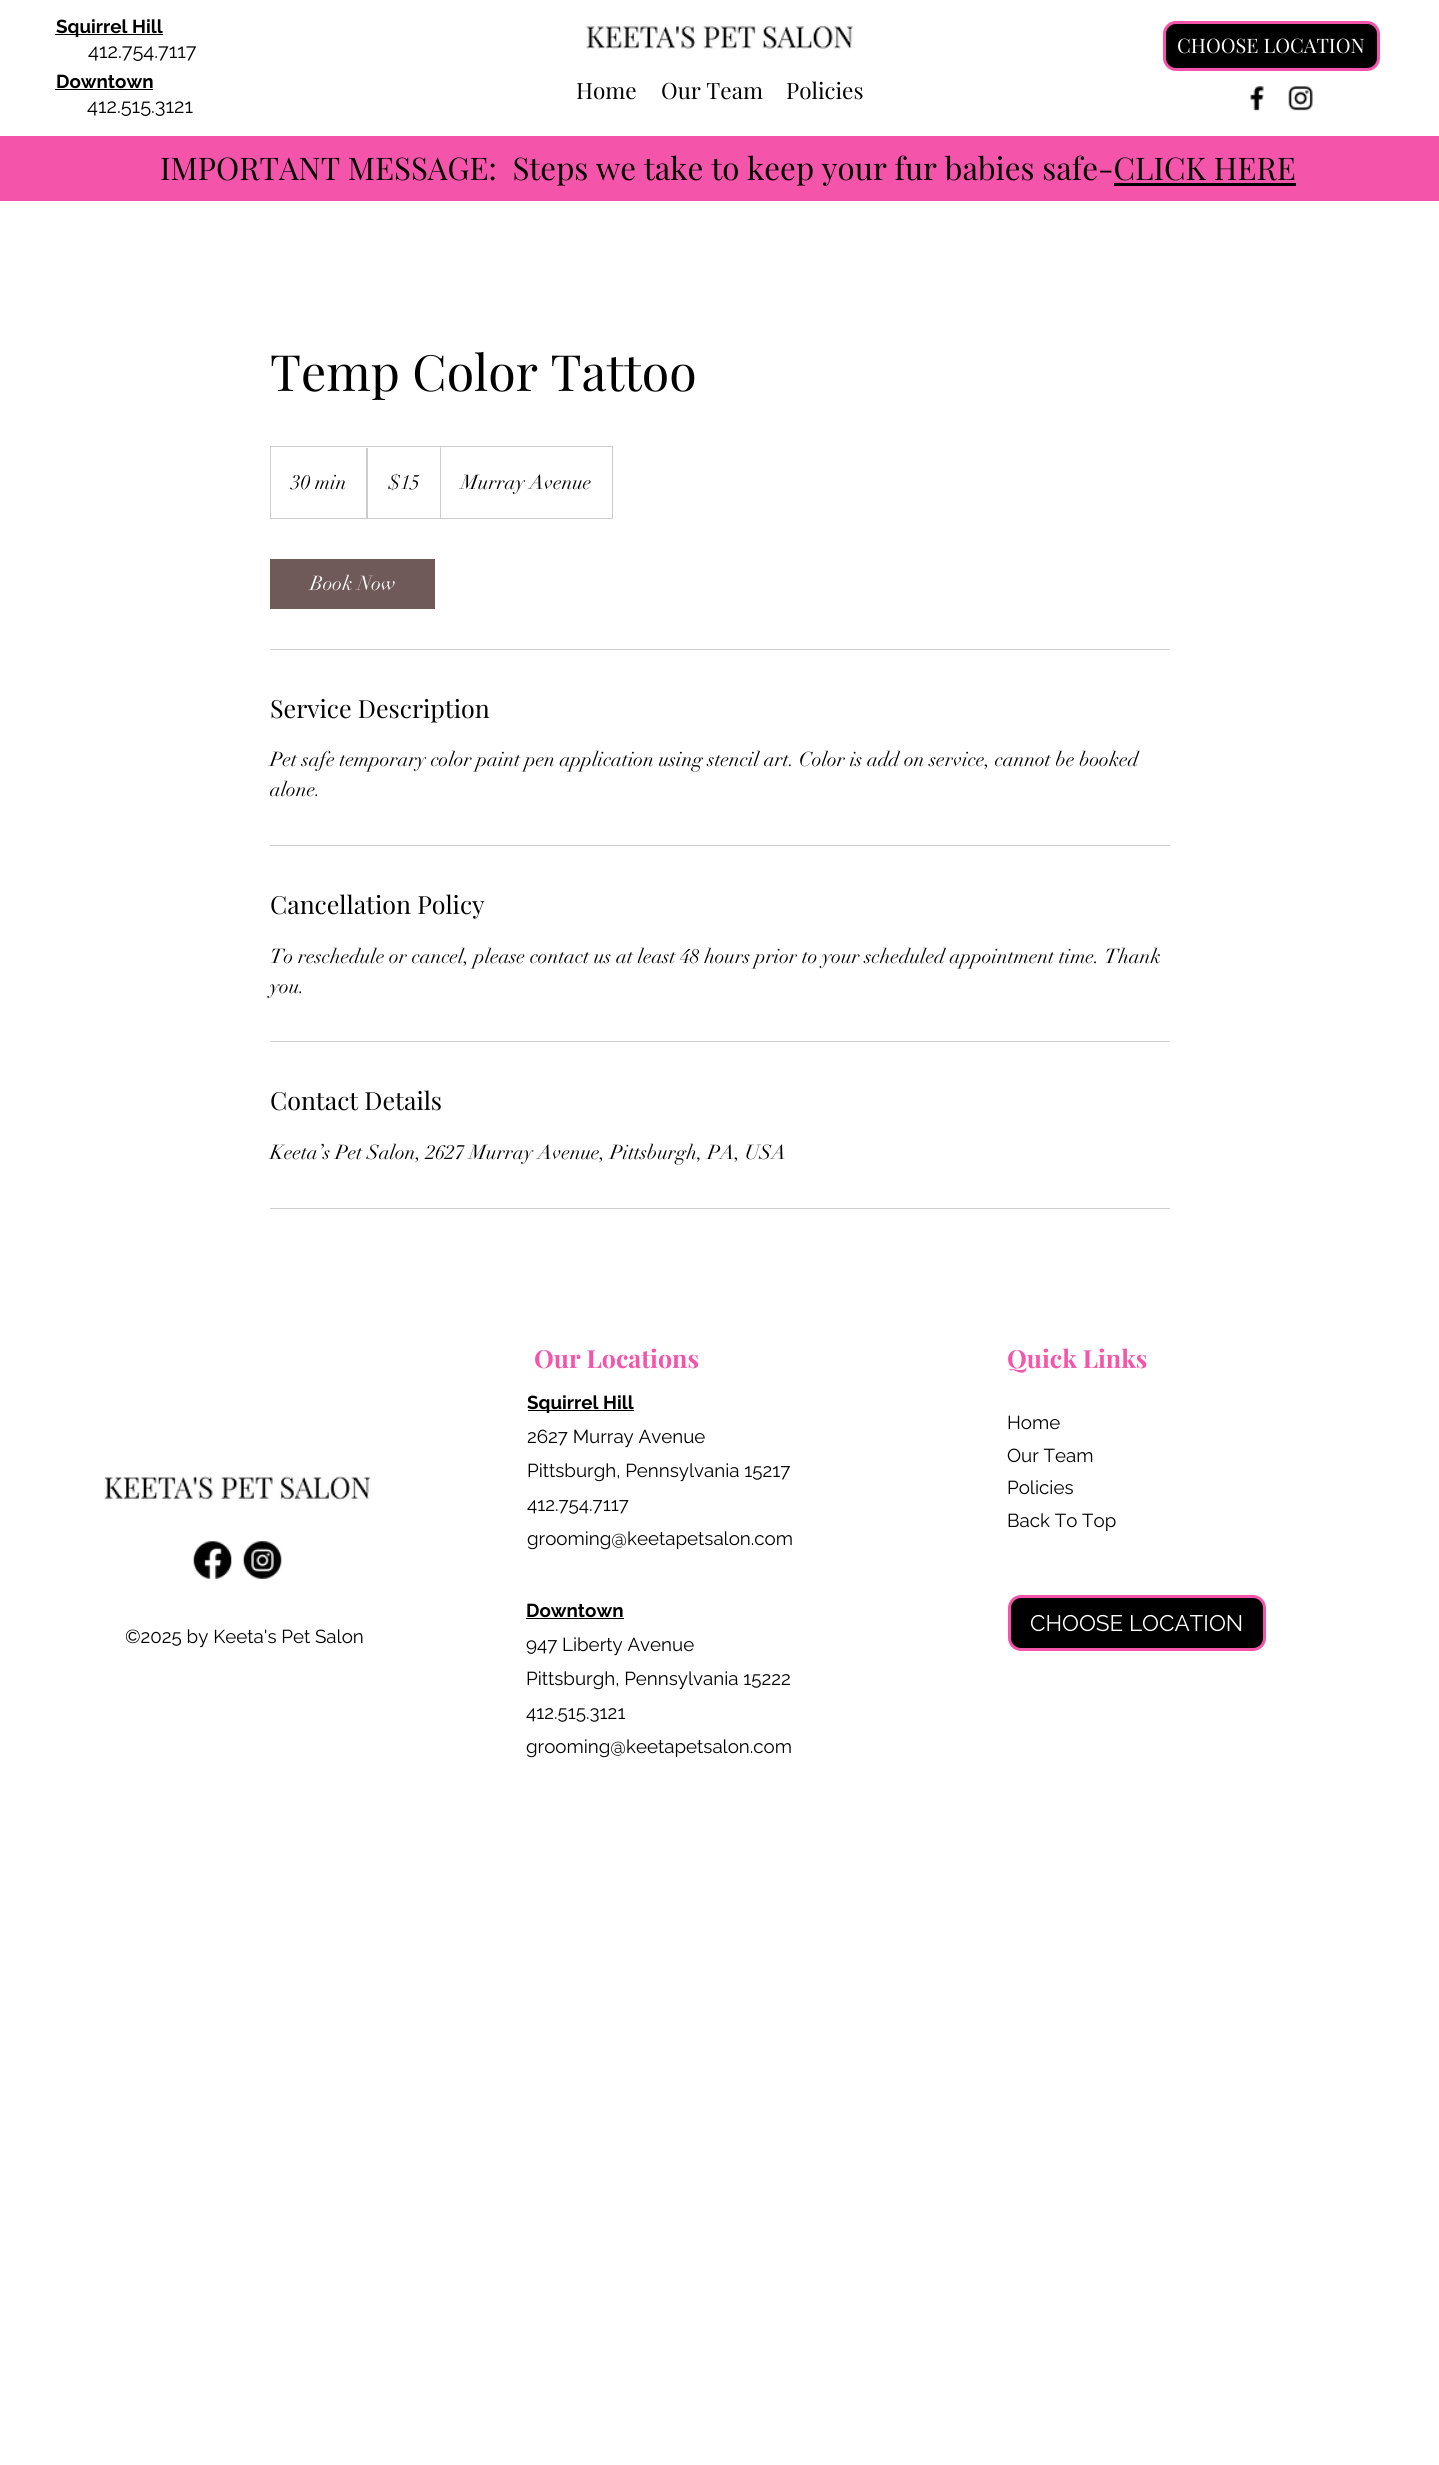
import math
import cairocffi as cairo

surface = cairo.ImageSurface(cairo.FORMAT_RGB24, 1439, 2465)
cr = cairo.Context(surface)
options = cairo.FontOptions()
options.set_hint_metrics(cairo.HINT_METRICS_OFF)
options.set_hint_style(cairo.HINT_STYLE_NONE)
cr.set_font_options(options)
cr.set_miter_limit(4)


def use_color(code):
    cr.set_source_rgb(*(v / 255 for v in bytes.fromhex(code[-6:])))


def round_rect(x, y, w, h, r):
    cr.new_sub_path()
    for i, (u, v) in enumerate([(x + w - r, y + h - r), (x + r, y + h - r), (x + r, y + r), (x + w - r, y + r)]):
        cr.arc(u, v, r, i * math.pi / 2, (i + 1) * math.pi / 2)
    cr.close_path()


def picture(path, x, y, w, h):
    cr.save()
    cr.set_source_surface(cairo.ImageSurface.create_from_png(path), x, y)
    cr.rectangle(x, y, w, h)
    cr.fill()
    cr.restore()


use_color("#ffffff")
cr.paint()
use_color("#000000")
cr.rectangle(55, 34, 108, 1)
cr.fill()
cr.select_font_face("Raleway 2", cairo.FONT_SLANT_NORMAL, cairo.FONT_WEIGHT_BOLD)
cr.set_font_size(18.75)
cr.move_to(56, 33)
cr.show_text("Squirrel Hill")
cr.select_font_face("Raleway")
cr.set_font_size(20)
cr.move_to(88, 58)
cr.show_text("412.754.7117")
cr.select_font_face("Raleway 2", cairo.FONT_SLANT_NORMAL, cairo.FONT_WEIGHT_BOLD)
cr.set_font_size(18.75)
cr.move_to(56, 88)
cr.show_text("Downtown")
cr.rectangle(55, 89, 98, 1)
cr.fill()
cr.select_font_face("Raleway")
cr.set_font_size(20)
cr.move_to(87, 113)
cr.show_text("412.515.3121")
round_rect(1164.5, 22.5, 214, 47, 11.5)
cr.fill_preserve()
use_color("#f554ab")
cr.set_line_width(3)
cr.stroke()
cr.select_font_face("Playfair Display")
use_color("#ffffff")
cr.move_to(1177, 53)
cr.show_text("CHOOSE LOCATION")
picture("img1.png", 1250, 86, 14, 25)
picture("img2.png", 1288, 86, 25, 25)
picture("img3.png", 586, 24, 268, 25)
cr.set_font_size(22.5)
use_color("#000000")
cr.move_to(576, 99)
cr.show_text("Home")
cr.move_to(661, 99)
cr.show_text("Our Team")
cr.move_to(786, 99)
cr.show_text("Policies")
use_color("#f554ab")
cr.rectangle(0, 136, 1439, 65)
cr.fill()
cr.set_font_size(31.25)
use_color("#000000")
cr.move_to(160, 180)
cr.show_text("IMPORTANT MESSAGE:  Steps we take to keep your fur babies safe-CLICK HERE")
cr.rectangle(1114, 183, 182, 3)
cr.fill()
cr.set_font_size(50)
cr.move_to(270, 391)
cr.show_text("Temp Color Tattoo")
cr.rectangle(270.5, 446.5, 342, 72)
use_color("#cccccc")
cr.set_line_width(1)
cr.stroke()
cr.select_font_face("didot")
cr.set_font_size(20)
use_color("#000000")
cr.move_to(291, 489)
cr.show_text("30 min")
cr.save()
cr.rectangle(271, 448, 340, 70)
cr.clip()
use_color("#cccccc")
cr.new_path()
cr.move_to(366, 518)
cr.line_to(366, 446)
cr.line_to(368, 448)
cr.line_to(368, 518)
cr.close_path()
cr.fill()
cr.restore()
cr.move_to(388, 489)
cr.show_text("$15")
use_color("#cccccc")
cr.new_path()
cr.move_to(440, 518)
cr.line_to(440, 446)
cr.line_to(441, 448)
cr.line_to(441, 518)
cr.close_path()
cr.fill()
use_color("#000000")
cr.move_to(461, 489)
cr.show_text("Murray Avenue")
use_color("#705959")
cr.rectangle(270, 559, 165, 50)
cr.fill()
use_color("#ffffff")
cr.move_to(310, 590)
cr.show_text("Book Now")
use_color("#cccccc")
cr.rectangle(270, 649, 900, 1)
cr.fill()
cr.select_font_face("Playfair Display")
cr.set_font_size(25)
use_color("#000000")
cr.move_to(270, 718)
cr.show_text("Service Description")
cr.select_font_face("didot")
cr.set_font_size(20)
cr.move_to(270, 766)
cr.show_text("Pet safe temporary color paint pen application using stencil art. Color is add on service, cannot be booked")
cr.move_to(270, 796)
cr.show_text("alone.")
use_color("#cccccc")
cr.rectangle(270, 845, 900, 1)
cr.fill()
cr.select_font_face("Playfair Display")
cr.set_font_size(25)
use_color("#000000")
cr.move_to(270, 914)
cr.show_text("Cancellation Policy")
cr.select_font_face("didot")
cr.set_font_size(20)
cr.move_to(270, 963)
cr.show_text("To reschedule or cancel, please contact us at least 48 hours prior to your scheduled appointment time. Thank")
cr.move_to(270, 993)
cr.show_text("you.")
use_color("#cccccc")
cr.rectangle(270, 1041, 900, 1)
cr.fill()
cr.select_font_face("Playfair Display")
cr.set_font_size(25)
use_color("#000000")
cr.move_to(270, 1110)
cr.show_text("Contact Details")
cr.select_font_face("didot")
cr.set_font_size(20)
cr.move_to(270, 1159)
cr.show_text("Keeta’s Pet Salon, 2627 Murray Avenue, Pittsburgh, PA, USA")
use_color("#cccccc")
cr.rectangle(270, 1208, 900, 1)
cr.fill()
cr.select_font_face("Playfair Display", cairo.FONT_SLANT_NORMAL, cairo.FONT_WEIGHT_BOLD)
cr.set_font_size(25)
use_color("#f554ab")
cr.move_to(534, 1368)
cr.show_text("Our Locations")
use_color("#000000")
cr.rectangle(528, 1410, 106, 1)
cr.fill()
cr.select_font_face("Raleway", cairo.FONT_SLANT_NORMAL, cairo.FONT_WEIGHT_BOLD)
cr.set_font_size(18.75)
cr.move_to(527, 1409)
cr.show_text("Squirrel Hill")
cr.select_font_face("Raleway")
cr.move_to(527, 1443)
cr.show_text("2627 Murray Avenue")
cr.move_to(527, 1477)
cr.show_text("Pittsburgh, Pennsylvania 15217")
cr.move_to(527, 1511)
cr.show_text("412.754.7117")
cr.move_to(527, 1545)
cr.show_text("grooming@keetapetsalon.com")
cr.select_font_face("Raleway", cairo.FONT_SLANT_NORMAL, cairo.FONT_WEIGHT_BOLD)
cr.move_to(526, 1617)
cr.show_text("Downtown")
cr.rectangle(526, 1618, 98, 1)
cr.fill()
cr.select_font_face("Raleway")
cr.move_to(526, 1651)
cr.show_text("947 Liberty Avenue")
cr.move_to(526, 1685)
cr.show_text("Pittsburgh, Pennsylvania 15222")
cr.move_to(526, 1719)
cr.show_text("412.515.3121")
cr.move_to(526, 1753)
cr.show_text("grooming@keetapetsalon.com")
cr.select_font_face("Playfair Display", cairo.FONT_SLANT_NORMAL, cairo.FONT_WEIGHT_BOLD)
cr.set_font_size(25)
use_color("#f554ab")
cr.move_to(1007, 1368)
cr.show_text("Quick Links")
cr.select_font_face("Raleway")
cr.set_font_size(18.75)
use_color("#000000")
cr.move_to(1007, 1429)
cr.show_text("Home")
cr.move_to(1007, 1462)
cr.show_text("Our Team")
cr.move_to(1007, 1494)
cr.show_text("Policies")
cr.move_to(1007, 1527)
cr.show_text("Back To Top")
round_rect(1009.5, 1596.5, 255, 53, 11.5)
cr.fill_preserve()
use_color("#f554ab")
cr.set_line_width(3)
cr.stroke()
cr.set_font_size(22.5)
use_color("#ffffff")
cr.move_to(1030, 1631)
cr.show_text("CHOOSE LOCATION")
picture("img4.png", 104, 1476, 267, 25)
picture("img5.png", 193, 1541, 39, 38)
picture("img6.png", 243, 1541, 39, 38)
cr.set_font_size(18.75)
use_color("#000000")
cr.move_to(125, 1643)
cr.show_text("©2025 by Keeta's Pet Salon")
surface.write_to_png("result.png")
